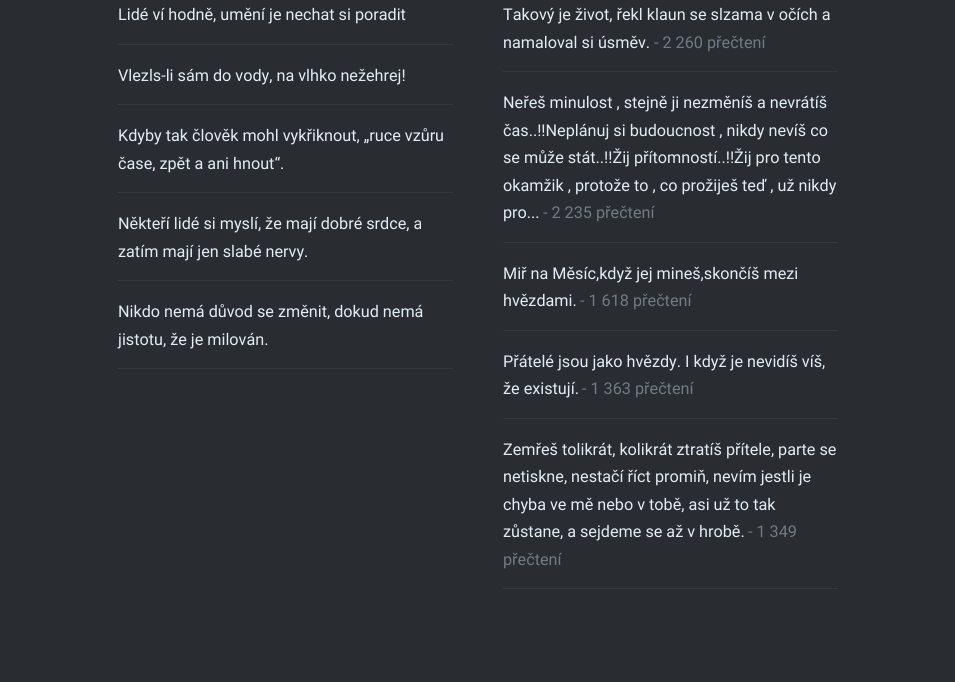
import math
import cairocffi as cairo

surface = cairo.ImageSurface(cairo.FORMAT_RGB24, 955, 682)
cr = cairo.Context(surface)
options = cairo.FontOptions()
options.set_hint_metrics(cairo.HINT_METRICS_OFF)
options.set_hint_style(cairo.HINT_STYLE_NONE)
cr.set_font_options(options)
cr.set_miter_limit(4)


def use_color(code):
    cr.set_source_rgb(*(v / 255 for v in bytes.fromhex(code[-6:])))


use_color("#292d32")
cr.paint()
use_color("#323941")
cr.rectangle(118, 44, 335, 1)
cr.fill()
cr.select_font_face("Roboto")
cr.set_font_size(16.2)
use_color("#e3ecf4")
cr.move_to(118, 20)
cr.show_text("Lidé ví hodně, umění je nechat si poradit")
use_color("#323941")
cr.rectangle(118, 104, 335, 1)
cr.fill()
use_color("#e3ecf4")
cr.move_to(118, 81)
cr.show_text("Vlezls-li sám do vody, na vlhko nežehrej!")
use_color("#323941")
cr.rectangle(118, 192, 335, 1)
cr.fill()
use_color("#e3ecf4")
cr.move_to(118, 141)
cr.show_text("Kdyby tak člověk mohl vykřiknout, „ruce vzůru")
cr.move_to(118, 169)
cr.show_text("čase, zpět a ani hnout“.")
use_color("#323941")
cr.rectangle(118, 280, 335, 1)
cr.fill()
use_color("#e3ecf4")
cr.move_to(118, 229)
cr.show_text("Někteří lidé si myslí, že mají dobré srdce, a")
cr.move_to(118, 257)
cr.show_text("zatím mají jen slabé nervy.")
use_color("#323941")
cr.rectangle(118, 368, 335, 1)
cr.fill()
use_color("#e3ecf4")
cr.move_to(118, 317)
cr.show_text("Nikdo nemá důvod se změnit, dokud nemá")
cr.move_to(118, 345)
cr.show_text("jistotu, že je milován.")
use_color("#323941")
cr.rectangle(503, 71, 335, 1)
cr.fill()
use_color("#e3ecf4")
cr.move_to(503, 20)
cr.show_text("Takový je život, řekl klaun se slzama v očích a")
cr.move_to(503, 48)
cr.show_text("namaloval si úsměv.")
use_color("#707984")
cr.move_to(654, 48)
cr.show_text("- 2 260 přečtení")
use_color("#323941")
cr.rectangle(503, 242, 335, 1)
cr.fill()
use_color("#e3ecf4")
cr.move_to(503, 108)
cr.show_text("Neřeš minulost , stejně ji nezměníš a nevrátíš")
cr.move_to(503, 136)
cr.show_text("čas..!!Neplánuj si budoucnost , nikdy nevíš co")
cr.move_to(503, 163)
cr.show_text("se může stát..!!Žij přítomností..!!Žij pro tento")
cr.move_to(503, 191)
cr.show_text("okamžik , protože to , co prožiješ teď , už nikdy")
cr.move_to(503, 218)
cr.show_text("pro...")
use_color("#707984")
cr.move_to(543, 218)
cr.show_text("- 2 235 přečtení")
use_color("#323941")
cr.rectangle(503, 330, 335, 1)
cr.fill()
use_color("#e3ecf4")
cr.move_to(503, 279)
cr.show_text("Miř na Měsíc,když jej mineš,skončíš mezi")
cr.move_to(503, 306)
cr.show_text("hvězdami.")
use_color("#707984")
cr.move_to(580, 306)
cr.show_text("- 1 618 přečtení")
use_color("#323941")
cr.rectangle(503, 418, 335, 1)
cr.fill()
use_color("#e3ecf4")
cr.move_to(503, 367)
cr.show_text("Přátelé jsou jako hvězdy. I když je nevidíš víš,")
cr.move_to(503, 394)
cr.show_text("že existují.")
use_color("#707984")
cr.move_to(582, 394)
cr.show_text("- 1 363 přečtení")
use_color("#323941")
cr.rectangle(503, 588, 335, 1)
cr.fill()
use_color("#e3ecf4")
cr.move_to(503, 455)
cr.show_text("Zemřeš tolikrát, kolikrát ztratíš přítele, parte se")
cr.move_to(503, 482)
cr.show_text("netiskne, nestačí říct promiň, nevím jestli je")
cr.move_to(503, 510)
cr.show_text("chyba ve mě nebo v tobě, asi už to tak")
cr.move_to(503, 537)
cr.show_text("zůstane, a sejdeme se až v hrobě.")
use_color("#707984")
cr.move_to(748, 537)
cr.show_text("- 1 349")
cr.move_to(503, 565)
cr.show_text("přečtení")
surface.write_to_png("result.png")
